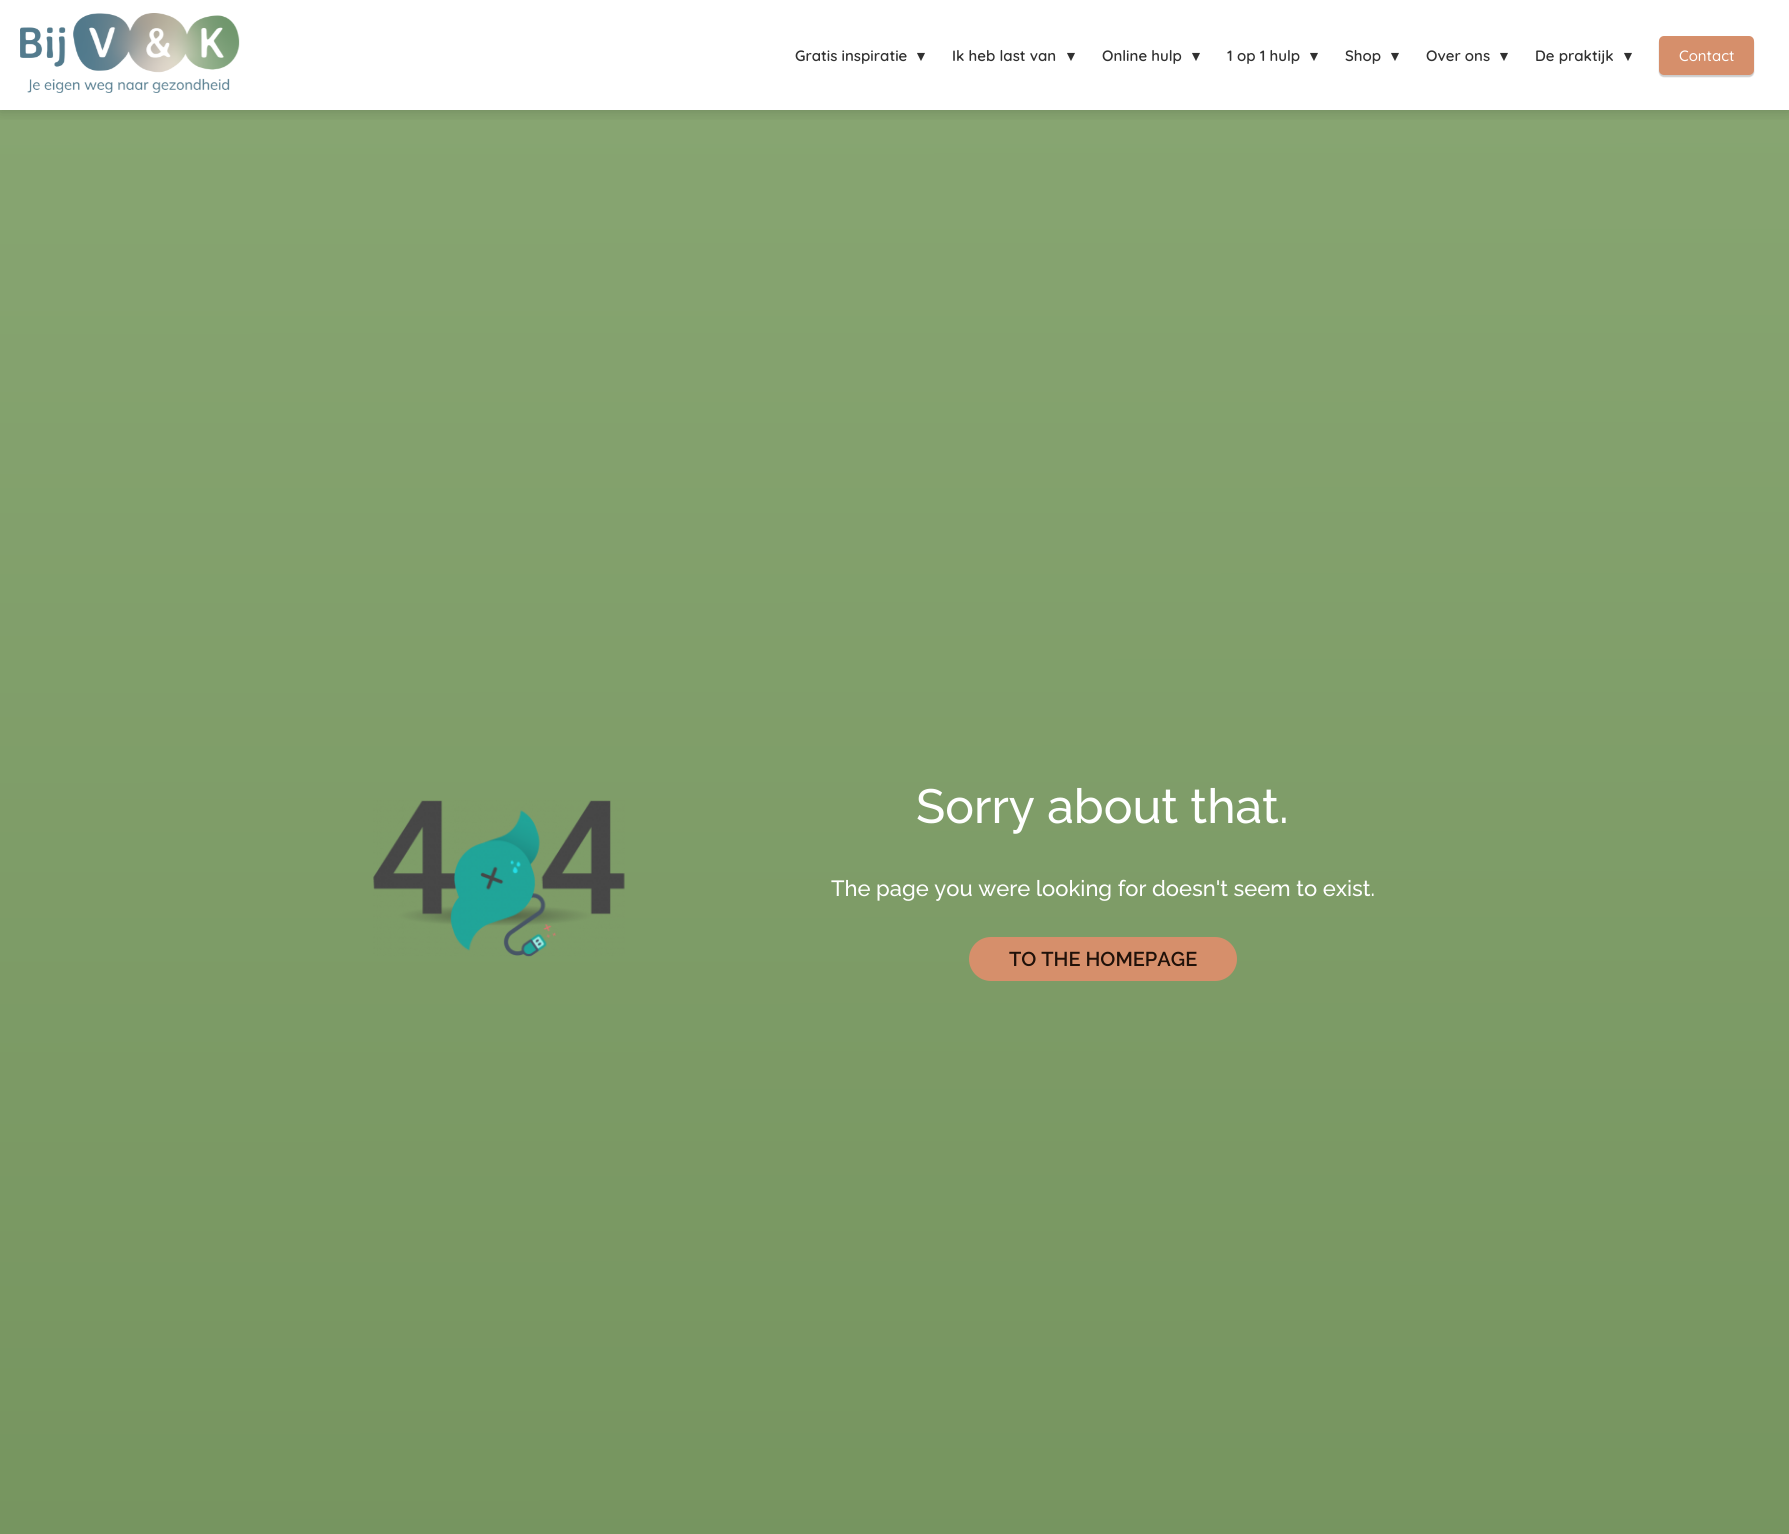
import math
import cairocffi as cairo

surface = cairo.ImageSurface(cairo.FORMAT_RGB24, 1789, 1534)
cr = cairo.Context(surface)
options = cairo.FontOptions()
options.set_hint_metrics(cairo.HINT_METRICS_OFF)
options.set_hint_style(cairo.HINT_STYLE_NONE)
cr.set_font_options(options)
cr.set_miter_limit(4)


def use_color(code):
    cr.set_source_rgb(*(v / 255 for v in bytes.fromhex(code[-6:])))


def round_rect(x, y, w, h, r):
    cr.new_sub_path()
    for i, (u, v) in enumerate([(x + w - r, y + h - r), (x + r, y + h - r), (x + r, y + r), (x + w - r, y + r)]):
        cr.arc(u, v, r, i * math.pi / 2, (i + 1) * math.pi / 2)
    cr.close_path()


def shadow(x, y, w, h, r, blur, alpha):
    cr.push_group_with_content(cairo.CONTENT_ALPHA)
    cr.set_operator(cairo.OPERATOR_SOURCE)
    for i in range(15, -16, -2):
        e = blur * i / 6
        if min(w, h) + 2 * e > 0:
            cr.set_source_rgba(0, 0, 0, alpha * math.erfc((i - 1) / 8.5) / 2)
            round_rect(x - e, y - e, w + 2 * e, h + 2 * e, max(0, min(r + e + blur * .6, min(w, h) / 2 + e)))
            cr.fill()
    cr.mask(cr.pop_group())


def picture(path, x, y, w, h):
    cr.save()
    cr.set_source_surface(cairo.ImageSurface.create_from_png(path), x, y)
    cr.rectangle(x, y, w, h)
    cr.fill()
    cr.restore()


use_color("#ffffff")
cr.paint()
gradient = cairo.LinearGradient(894, 110, 895, 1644)
gradient.add_color_stop_rgba(0, 0.529, 0.647, 0.443, 1)
gradient.add_color_stop_rgba(1, 0.459, 0.58, 0.369, 1)
cr.set_source(gradient)
cr.rectangle(0, 110, 1789, 1424)
cr.fill()
cr.save()
cr.rectangle(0, 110, 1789, 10)
cr.clip()
use_color("#000000")
shadow(0, 0, 1789, 110, 0, 7.5, 0.2)
cr.restore()
picture("img1.png", 20, 13, 220, 80)
cr.select_font_face("Quicksand SemiBold")
cr.set_font_size(15)
use_color("#313131")
cr.move_to(795, 61)
cr.show_text("Gratis inspiratie")
cr.select_font_face("DejaVu Sans", cairo.FONT_SLANT_NORMAL, cairo.FONT_WEIGHT_BOLD)
cr.move_to(917, 61)
cr.show_text("▾")
cr.select_font_face("Quicksand SemiBold")
cr.move_to(952, 61)
cr.show_text("Ik heb last van")
cr.select_font_face("DejaVu Sans", cairo.FONT_SLANT_NORMAL, cairo.FONT_WEIGHT_BOLD)
cr.move_to(1067, 61)
cr.show_text("▾")
cr.select_font_face("Quicksand SemiBold")
cr.move_to(1102, 61)
cr.show_text("Online hulp")
cr.select_font_face("DejaVu Sans", cairo.FONT_SLANT_NORMAL, cairo.FONT_WEIGHT_BOLD)
cr.move_to(1192, 61)
cr.show_text("▾")
cr.select_font_face("Quicksand SemiBold")
cr.move_to(1227, 61)
cr.show_text("1 op 1 hulp")
cr.select_font_face("DejaVu Sans", cairo.FONT_SLANT_NORMAL, cairo.FONT_WEIGHT_BOLD)
cr.move_to(1310, 61)
cr.show_text("▾")
cr.select_font_face("Quicksand SemiBold")
cr.move_to(1345, 61)
cr.show_text("Shop")
cr.select_font_face("DejaVu Sans", cairo.FONT_SLANT_NORMAL, cairo.FONT_WEIGHT_BOLD)
cr.move_to(1391, 61)
cr.show_text("▾")
cr.select_font_face("Quicksand SemiBold")
cr.move_to(1426, 61)
cr.show_text("Over ons")
cr.select_font_face("DejaVu Sans", cairo.FONT_SLANT_NORMAL, cairo.FONT_WEIGHT_BOLD)
cr.move_to(1500, 61)
cr.show_text("▾")
cr.select_font_face("Quicksand SemiBold")
cr.move_to(1535, 61)
cr.show_text("De praktijk")
cr.select_font_face("DejaVu Sans", cairo.FONT_SLANT_NORMAL, cairo.FONT_WEIGHT_BOLD)
cr.move_to(1624, 61)
cr.show_text("▾")
use_color("#000000")
shadow(1659, 38, 95, 39, 5, 0.5, 0.2)
use_color("#d68f6b")
round_rect(1659, 36, 95, 39, 5)
cr.fill()
cr.select_font_face("Quicksand Medium")
use_color("#ffffff")
cr.move_to(1679, 61)
cr.show_text("Contact")
picture("img2.png", 373, 800, 252, 157)
cr.select_font_face("Raleway Medium")
cr.set_font_size(48)
cr.move_to(916, 823)
cr.show_text("Sorry about that.")
cr.set_font_size(22)
cr.move_to(831, 896)
cr.show_text("The page you were looking for doesn't seem to exist.")
use_color("#d68f6b")
round_rect(969, 937, 268, 44, 22)
cr.fill()
cr.select_font_face("Raleway SemiBold")
cr.set_font_size(20)
use_color("#201109")
cr.move_to(1009, 966)
cr.show_text("TO THE HOMEPAGE")
surface.write_to_png("result.png")
